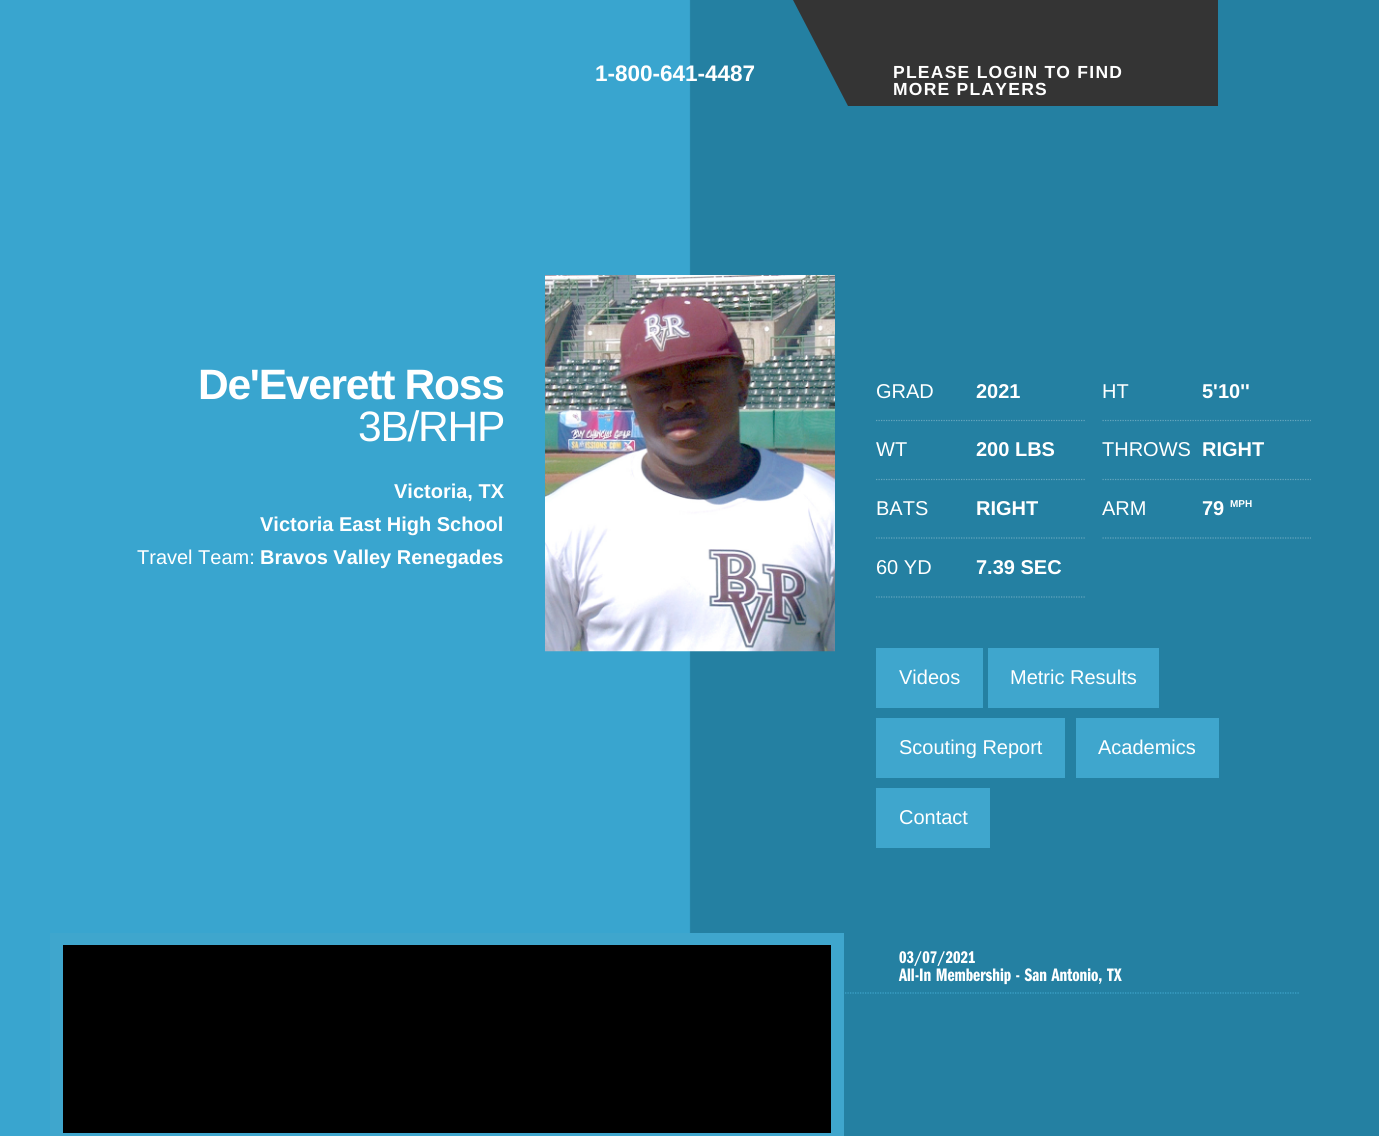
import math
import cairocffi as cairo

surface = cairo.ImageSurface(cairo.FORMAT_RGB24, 1379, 1136)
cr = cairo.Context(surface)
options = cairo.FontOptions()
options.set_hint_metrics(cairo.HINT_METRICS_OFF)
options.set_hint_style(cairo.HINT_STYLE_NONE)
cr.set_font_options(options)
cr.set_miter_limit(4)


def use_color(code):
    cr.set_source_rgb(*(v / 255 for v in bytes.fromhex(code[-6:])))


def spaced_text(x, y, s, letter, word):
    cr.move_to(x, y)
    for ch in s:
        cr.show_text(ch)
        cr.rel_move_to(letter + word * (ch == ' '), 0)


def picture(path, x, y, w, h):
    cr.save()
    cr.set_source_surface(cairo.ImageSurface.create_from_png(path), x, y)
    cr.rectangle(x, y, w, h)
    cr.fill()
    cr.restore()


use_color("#ffffff")
cr.paint()
picture("img1.png", 0, 0, 1379, 1136)
cr.select_font_face("Liberation Sans", cairo.FONT_SLANT_NORMAL, cairo.FONT_WEIGHT_BOLD)
cr.set_font_size(22.5)
use_color("#ffffff")
cr.move_to(595, 81)
cr.show_text("1-800-641-4487")
cr.save()
cr.rectangle(793, 0, 425, 106)
cr.clip()
use_color("#343434")
cr.new_path()
cr.move_to(1318, 0)
cr.line_to(1318, 106)
cr.line_to(848, 106)
cr.line_to(793, 0)
cr.close_path()
cr.fill()
cr.restore()
cr.set_font_size(17.5)
spaced_text(893, 78, "PLEASE LOGIN TO FIND", 1.25, 0)
spaced_text(893, 95, "MORE PLAYERS", 1.25, 0)
cr.set_font_size(42.5)
spaced_text(198, 399, "De'Everett Ross", -1.25, 0)
cr.select_font_face("Liberation Sans")
spaced_text(358, 441, "3B/RHP", -1.25, 0)
cr.select_font_face("Liberation Sans", cairo.FONT_SLANT_NORMAL, cairo.FONT_WEIGHT_BOLD)
cr.set_font_size(20)
cr.move_to(394, 498)
cr.show_text("Victoria, TX")
cr.move_to(260, 531)
cr.show_text("Victoria East High School")
cr.select_font_face("Liberation Sans")
cr.move_to(137, 564)
cr.show_text("Travel Team:")
cr.select_font_face("Liberation Sans", cairo.FONT_SLANT_NORMAL, cairo.FONT_WEIGHT_BOLD)
cr.move_to(260, 564)
cr.show_text("Bravos Valley Renegades")
picture("img2.png", 545, 275, 290, 377)
cr.new_path()
cr.move_to(876, 420.5)
cr.line_to(1085, 420.5)
use_color("#66a6be")
cr.set_line_width(1.2)
cr.set_dash([1.25, 1.25])
cr.stroke()
cr.select_font_face("Liberation Sans")
use_color("#ffffff")
cr.move_to(876, 398)
cr.show_text("GRAD")
cr.select_font_face("Liberation Sans", cairo.FONT_SLANT_NORMAL, cairo.FONT_WEIGHT_BOLD)
cr.move_to(976, 398)
cr.show_text("2021")
cr.new_path()
cr.move_to(1102.5, 420.5)
cr.line_to(1311, 420.5)
use_color("#66a6be")
cr.stroke()
cr.select_font_face("Liberation Sans")
use_color("#ffffff")
cr.move_to(1102, 398)
cr.show_text("HT")
cr.select_font_face("Liberation Sans", cairo.FONT_SLANT_NORMAL, cairo.FONT_WEIGHT_BOLD)
cr.move_to(1202, 398)
cr.show_text("5'10''")
cr.new_path()
cr.move_to(876, 479.5)
cr.line_to(1085, 479.5)
use_color("#66a6be")
cr.stroke()
cr.select_font_face("Liberation Sans")
use_color("#ffffff")
cr.move_to(876, 456)
cr.show_text("WT")
cr.select_font_face("Liberation Sans", cairo.FONT_SLANT_NORMAL, cairo.FONT_WEIGHT_BOLD)
cr.move_to(976, 456)
cr.show_text("200 LBS")
cr.new_path()
cr.move_to(1102.5, 479.5)
cr.line_to(1311, 479.5)
use_color("#66a6be")
cr.stroke()
cr.select_font_face("Liberation Sans")
use_color("#ffffff")
cr.move_to(1102, 456)
cr.show_text("THROWS")
cr.select_font_face("Liberation Sans", cairo.FONT_SLANT_NORMAL, cairo.FONT_WEIGHT_BOLD)
cr.move_to(1202, 456)
cr.show_text("RIGHT")
cr.new_path()
cr.move_to(876, 538)
cr.line_to(1085, 538)
use_color("#66a6be")
cr.stroke()
cr.select_font_face("Liberation Sans")
use_color("#ffffff")
cr.move_to(876, 515)
cr.show_text("BATS")
cr.select_font_face("Liberation Sans", cairo.FONT_SLANT_NORMAL, cairo.FONT_WEIGHT_BOLD)
cr.move_to(976, 515)
cr.show_text("RIGHT")
cr.new_path()
cr.move_to(1102.5, 538)
cr.line_to(1311, 538)
use_color("#66a6be")
cr.stroke()
cr.select_font_face("Liberation Sans")
use_color("#ffffff")
cr.move_to(1102, 515)
cr.show_text("ARM")
cr.select_font_face("Liberation Sans", cairo.FONT_SLANT_NORMAL, cairo.FONT_WEIGHT_BOLD)
cr.move_to(1202, 515)
cr.show_text("79")
cr.set_font_size(10)
cr.move_to(1230, 507)
cr.show_text("MPH")
cr.new_path()
cr.move_to(876, 597)
cr.line_to(1085, 597)
use_color("#66a6be")
cr.stroke()
cr.select_font_face("Liberation Sans")
cr.set_font_size(20)
use_color("#ffffff")
cr.move_to(876, 574)
cr.show_text("60 YD")
cr.select_font_face("Liberation Sans", cairo.FONT_SLANT_NORMAL, cairo.FONT_WEIGHT_BOLD)
cr.move_to(976, 574)
cr.show_text("7.39 SEC")
use_color("#3fa6cd")
cr.rectangle(876, 648, 107, 60)
cr.fill()
cr.select_font_face("Liberation Sans")
use_color("#ffffff")
cr.move_to(899, 684)
cr.show_text("Videos")
use_color("#3fa6cd")
cr.rectangle(988, 648, 171, 60)
cr.fill()
use_color("#ffffff")
cr.move_to(1010, 684)
cr.show_text("Metric Results")
use_color("#3fa6cd")
cr.rectangle(876, 718, 189, 60)
cr.fill()
use_color("#ffffff")
cr.move_to(899, 754)
cr.show_text("Scouting Report")
use_color("#3fa6cd")
cr.rectangle(1076, 718, 143, 60)
cr.fill()
use_color("#ffffff")
cr.move_to(1098, 754)
cr.show_text("Academics")
use_color("#3fa6cd")
cr.rectangle(876, 788, 114, 60)
cr.fill()
use_color("#ffffff")
cr.move_to(899, 824)
cr.show_text("Contact")
cr.rectangle(56.5, 939.5, 781, 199)
use_color("#3fa6cd")
cr.set_line_width(13)
cr.set_dash([])
cr.stroke()
use_color("#000000")
cr.rectangle(63, 945, 768, 188)
cr.fill()
cr.new_path()
cr.move_to(837.5, 993)
cr.line_to(1299, 993)
use_color("#3fa6cd")
cr.set_line_width(1.2)
cr.set_dash([1.25, 1.25])
cr.stroke()
cr.select_font_face("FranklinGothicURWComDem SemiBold")
cr.set_font_size(17.5)
use_color("#ffffff")
cr.move_to(899, 963)
cr.show_text("03/07/2021")
cr.set_font_size(18.75)
cr.move_to(899, 981)
cr.show_text("All-In Membership - San Antonio, TX")
surface.write_to_png("result.png")
